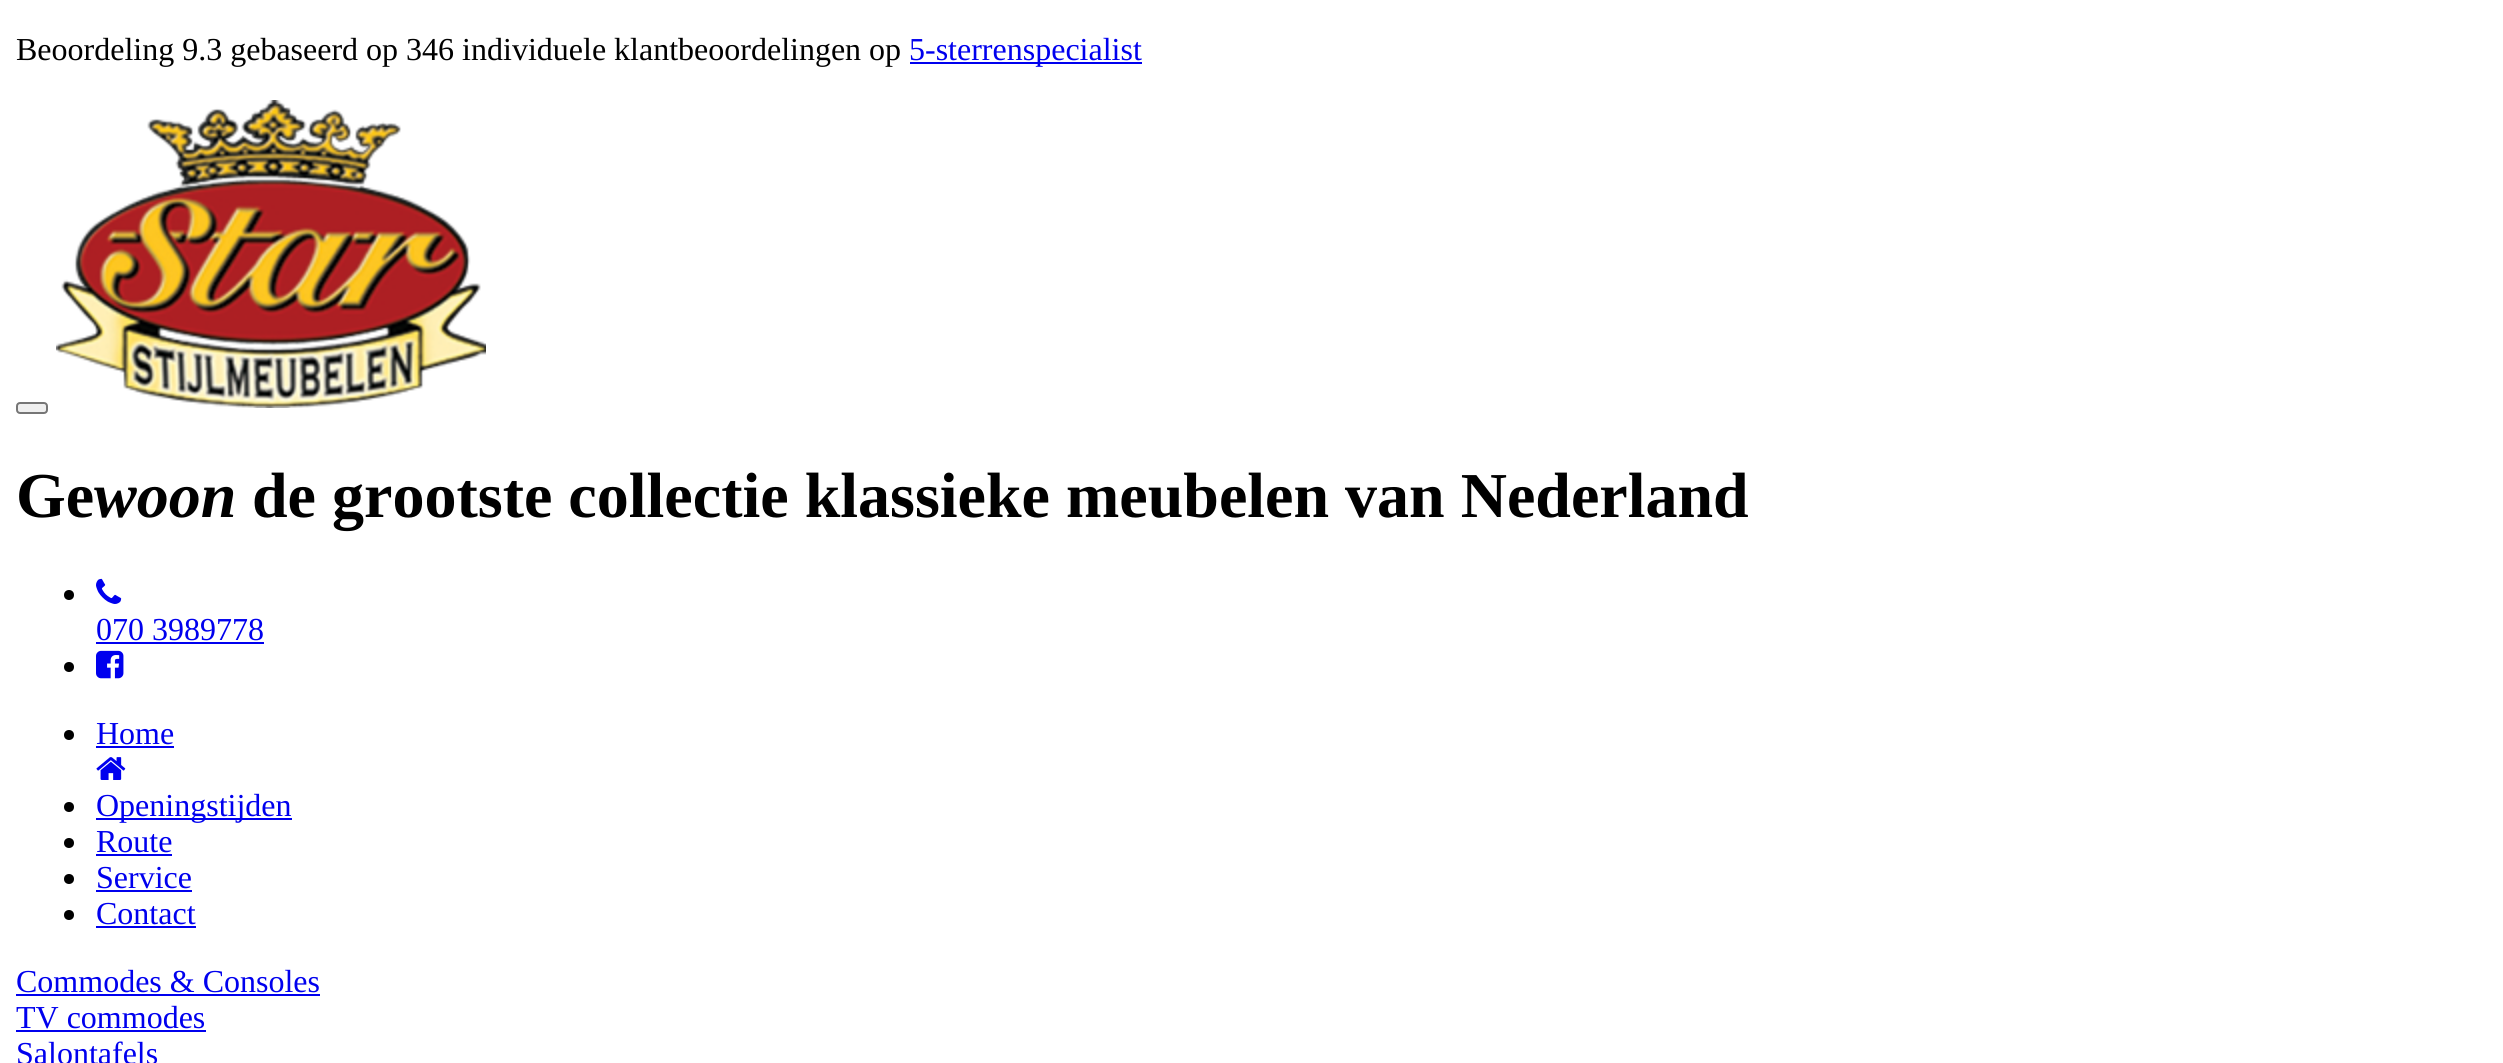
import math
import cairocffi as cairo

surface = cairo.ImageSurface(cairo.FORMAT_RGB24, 2503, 1063)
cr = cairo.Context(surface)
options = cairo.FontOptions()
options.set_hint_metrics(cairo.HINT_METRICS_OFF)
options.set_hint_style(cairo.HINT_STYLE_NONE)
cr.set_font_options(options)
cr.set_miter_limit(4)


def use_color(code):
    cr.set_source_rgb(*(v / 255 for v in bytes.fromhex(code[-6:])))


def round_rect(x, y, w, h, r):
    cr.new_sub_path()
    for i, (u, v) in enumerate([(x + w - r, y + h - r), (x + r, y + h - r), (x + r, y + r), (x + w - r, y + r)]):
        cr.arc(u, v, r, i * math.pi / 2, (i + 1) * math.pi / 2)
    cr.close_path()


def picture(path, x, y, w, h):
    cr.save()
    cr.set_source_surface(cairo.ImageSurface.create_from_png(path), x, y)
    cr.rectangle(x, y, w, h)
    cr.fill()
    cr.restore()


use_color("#ffffff")
cr.paint()
cr.select_font_face("Liberation Serif")
cr.set_font_size(32)
use_color("#000000")
cr.move_to(16, 60)
cr.show_text("Beoordeling 9.3 gebaseerd op 346 individuele klantbeoordelingen op")
use_color("#0000ee")
cr.rectangle(910, 62, 232, 2)
cr.fill()
cr.move_to(909, 60)
cr.show_text("5-sterrenspecialist")
use_color("#efefef")
round_rect(17, 403, 30, 10, 3)
cr.fill_preserve()
use_color("#767676")
cr.stroke()
picture("img1.png", 56, 100, 430, 308)
cr.select_font_face("Liberation Serif", cairo.FONT_SLANT_NORMAL, cairo.FONT_WEIGHT_BOLD)
cr.set_font_size(64)
use_color("#000000")
cr.move_to(16, 517)
cr.show_text("Ge")
cr.select_font_face("Liberation Serif", cairo.FONT_SLANT_ITALIC, cairo.FONT_WEIGHT_BOLD)
cr.move_to(94, 517)
cr.show_text("woon")
cr.select_font_face("Liberation Serif", cairo.FONT_SLANT_NORMAL, cairo.FONT_WEIGHT_BOLD)
cr.move_to(252, 517)
cr.show_text("de grootste collectie klassieke meubelen van Nederland")
cr.new_path()
cr.arc(69, 595, 5, 0, 2 * math.pi)
cr.fill()
picture("img2.png", 96, 578, 26, 26)
cr.select_font_face("Liberation Serif")
cr.set_font_size(32)
use_color("#0000ee")
cr.move_to(96, 640)
cr.show_text("070 3989778")
cr.rectangle(96, 642, 168, 2)
cr.fill()
use_color("#000000")
cr.arc(69, 667, 5, 0, 2 * math.pi)
cr.fill()
picture("img3.png", 96, 650, 28, 29)
cr.arc(69, 735, 5, 0, 2 * math.pi)
cr.fill()
use_color("#0000ee")
cr.move_to(96, 744)
cr.show_text("Home")
cr.rectangle(96, 746, 78, 2)
cr.fill()
picture("img4.png", 96, 757, 30, 23)
use_color("#000000")
cr.arc(69, 807, 5, 0, 2 * math.pi)
cr.fill()
use_color("#0000ee")
cr.rectangle(96, 818, 196, 2)
cr.fill()
cr.move_to(96, 816)
cr.show_text("Openingstijden")
use_color("#000000")
cr.new_path()
cr.arc(69, 843, 5, 0, 2 * math.pi)
cr.fill()
use_color("#0000ee")
cr.move_to(96, 852)
cr.show_text("Route")
cr.rectangle(96, 854, 76, 2)
cr.fill()
use_color("#000000")
cr.arc(69, 879, 5, 0, 2 * math.pi)
cr.fill()
use_color("#0000ee")
cr.move_to(96, 888)
cr.show_text("Service")
cr.rectangle(96, 890, 96, 2)
cr.fill()
use_color("#000000")
cr.arc(69, 915, 5, 0, 2 * math.pi)
cr.fill()
use_color("#0000ee")
cr.move_to(96, 924)
cr.show_text("Contact")
cr.rectangle(96, 926, 100, 2)
cr.fill()
cr.move_to(16, 992)
cr.show_text("Commodes & Consoles")
cr.rectangle(16, 994, 304, 2)
cr.fill()
cr.move_to(16, 1028)
cr.show_text("TV commodes")
cr.rectangle(16, 1030, 190, 2)
cr.fill()
cr.move_to(16, 1064)
cr.show_text("Salontafels")
surface.write_to_png("result.png")
